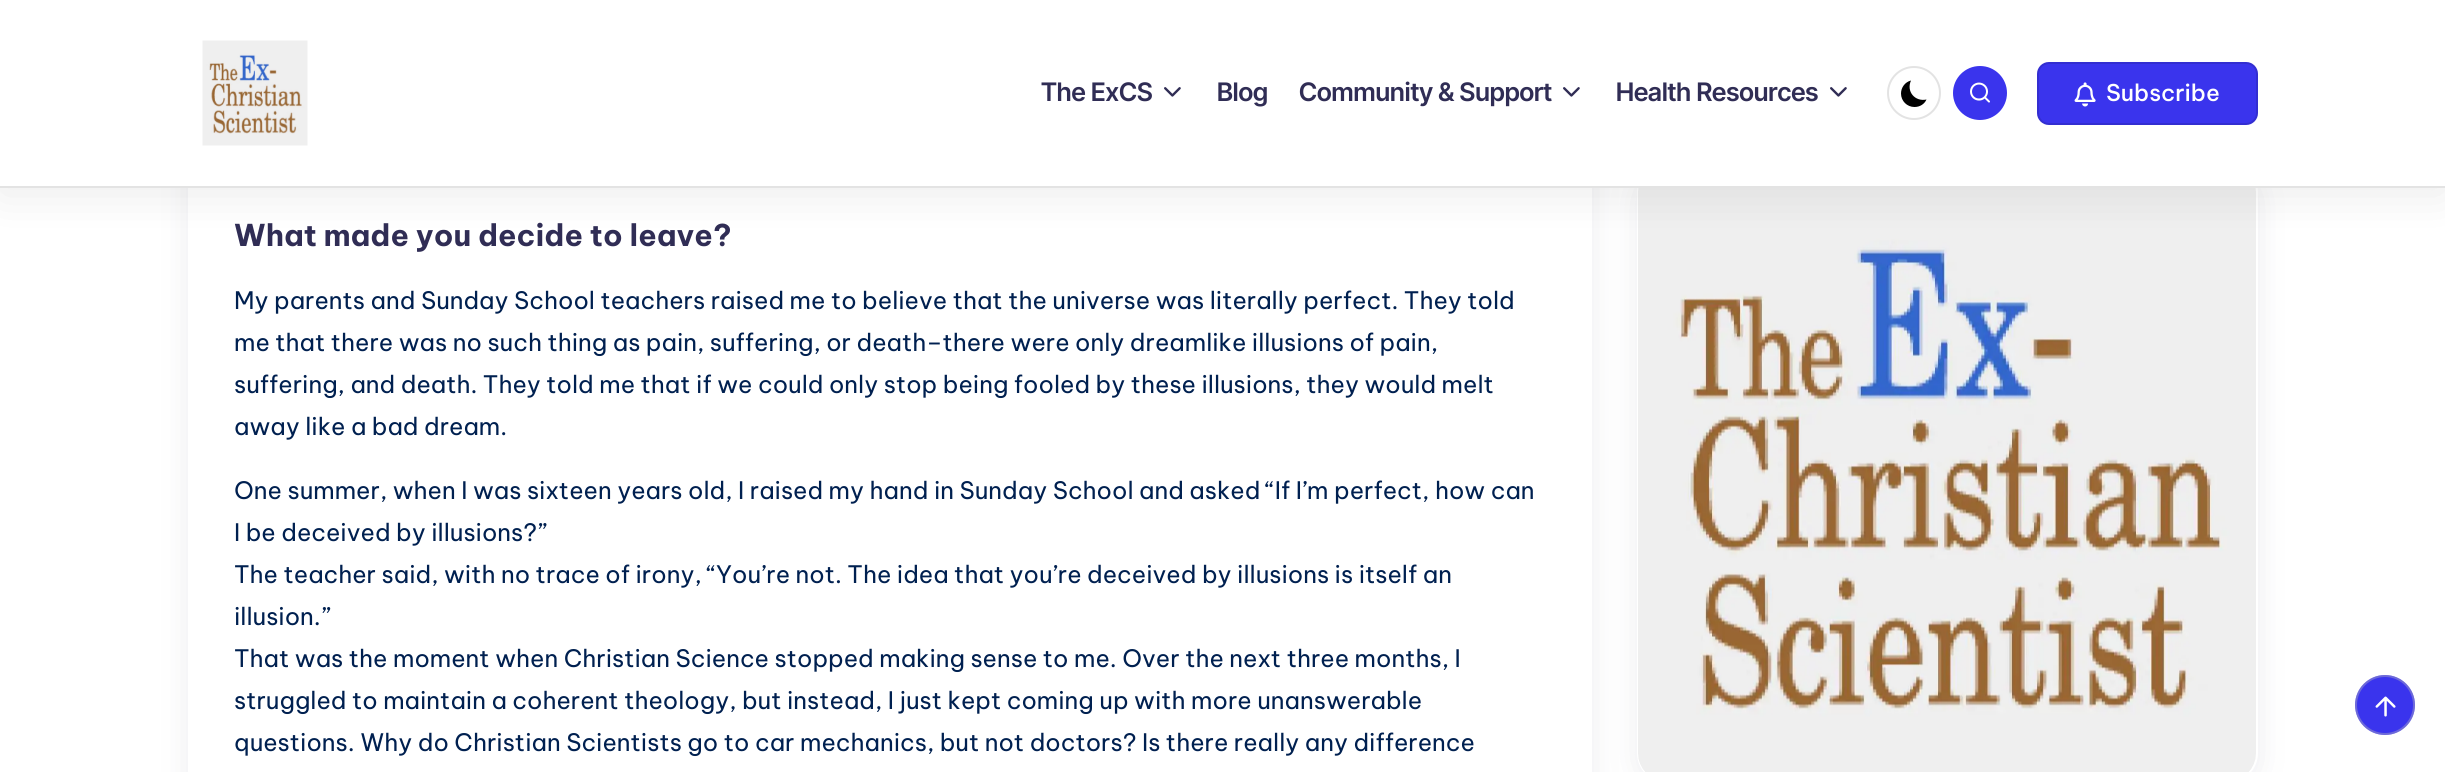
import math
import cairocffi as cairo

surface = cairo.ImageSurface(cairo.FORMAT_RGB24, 2445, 772)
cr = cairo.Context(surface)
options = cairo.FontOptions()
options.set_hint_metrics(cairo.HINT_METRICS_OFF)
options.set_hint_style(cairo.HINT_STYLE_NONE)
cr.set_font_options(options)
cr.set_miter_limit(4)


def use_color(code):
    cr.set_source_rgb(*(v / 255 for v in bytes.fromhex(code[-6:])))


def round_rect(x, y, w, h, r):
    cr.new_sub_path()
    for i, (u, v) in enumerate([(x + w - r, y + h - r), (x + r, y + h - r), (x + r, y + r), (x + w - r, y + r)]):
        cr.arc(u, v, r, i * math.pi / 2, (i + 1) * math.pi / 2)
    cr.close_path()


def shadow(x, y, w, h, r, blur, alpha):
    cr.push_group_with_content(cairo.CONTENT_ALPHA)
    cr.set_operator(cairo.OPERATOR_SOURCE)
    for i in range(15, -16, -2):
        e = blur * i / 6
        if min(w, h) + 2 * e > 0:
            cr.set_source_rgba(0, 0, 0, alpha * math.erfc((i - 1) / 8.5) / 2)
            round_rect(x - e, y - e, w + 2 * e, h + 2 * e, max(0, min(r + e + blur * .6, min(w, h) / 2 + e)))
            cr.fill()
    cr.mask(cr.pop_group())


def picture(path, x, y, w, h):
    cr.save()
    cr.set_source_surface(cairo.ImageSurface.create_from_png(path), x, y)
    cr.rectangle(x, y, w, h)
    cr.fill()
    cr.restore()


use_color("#ffffff")
cr.paint()
use_color("#454360")
shadow(188, -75, 1404, 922, 30, 15, 0.1)
use_color("#ffffff")
cr.rectangle(188, 188, 1404, 584)
cr.fill()
use_color("#454360")
shadow(1637, 170, 621, 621, 30, 15, 0.1)
use_color("#ffffff")
round_rect(1637, 162, 621, 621, 30)
cr.fill()
picture("img5.png", 1638, 188, 618, 584)
use_color("#000000")
shadow(0, 6, 2445, 188, 0, 22.5, 0.08)
use_color("#ffffff")
cr.rectangle(0, 0, 2445, 186)
cr.fill()
use_color("#e3e3e3")
cr.rectangle(0, 186, 2445, 2)
cr.fill()
picture("img1.png", 202, 40, 106, 106)
cr.select_font_face("Inter Tight SemiBold")
cr.set_font_size(25.5)
use_color("#302d55")
cr.move_to(1041, 101)
cr.show_text("The ExCS")
picture("img2.png", 1164, 87, 17, 10)
cr.move_to(1217, 101)
cr.show_text("Blog")
cr.move_to(1299, 101)
cr.show_text("Community & Support")
picture("img2.png", 1563, 87, 17, 10)
cr.move_to(1616, 101)
cr.show_text("Health Resources")
picture("img2.png", 1830, 87, 17, 10)
cr.arc(1914, 93, 26, 0, 2 * math.pi)
use_color("#e3e3e3")
cr.stroke()
use_color("#000000")
cr.new_path()
cr.move_to(1926.5, 99.5)
cr.curve_to(1915, 102, 1906, 91.5, 1911, 80.5)
cr.curve_to(1905, 82, 1901, 87.5, 1901, 93.5)
cr.curve_to(1901, 101, 1907, 107, 1914.5, 107)
cr.curve_to(1920, 107, 1924.5, 104, 1926.5, 99.5)
cr.close_path()
cr.fill()
use_color("#3a34ed")
cr.arc(1980, 93, 27, 0, 2 * math.pi)
cr.fill()
picture("img3.png", 1970, 82, 20, 21)
round_rect(2037, 62, 221, 63, 12)
cr.fill()
round_rect(2038, 63, 219, 61, 11)
cr.set_source_rgba(0, 0, 0, 0.12)
cr.stroke()
picture("img4.png", 2074, 82, 22, 25)
cr.select_font_face("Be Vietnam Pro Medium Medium")
cr.set_font_size(23)
use_color("#ffffff")
cr.move_to(2106, 101)
cr.show_text("Subscribe")
cr.select_font_face("Be Vietnam Pro", cairo.FONT_SLANT_NORMAL, cairo.FONT_WEIGHT_BOLD)
cr.set_font_size(30)
use_color("#302d55")
cr.move_to(234, 246)
cr.show_text("What made you decide to leave?")
cr.select_font_face("Be Vietnam Pro")
cr.set_font_size(24)
use_color("#002050")
cr.move_to(234, 309)
cr.show_text("My parents and Sunday School teachers raised me to believe that the universe was literally perfect. They told")
cr.move_to(234, 351)
cr.show_text("me that there was no such thing as pain, suffering, or death–there were only dreamlike illusions of pain,")
cr.move_to(234, 393)
cr.show_text("suffering, and death. They told me that if we could only stop being fooled by these illusions, they would melt")
cr.move_to(234, 435)
cr.show_text("away like a bad dream.")
cr.move_to(234, 499)
cr.show_text("One summer, when I was sixteen years old, I raised my hand in Sunday School and asked “If I’m perfect, how can")
cr.move_to(234, 541)
cr.show_text("I be deceived by illusions?”")
cr.move_to(234, 583)
cr.show_text("The teacher said, with no trace of irony, “You’re not. The idea that you’re deceived by illusions is itself an")
cr.move_to(234, 625)
cr.show_text("illusion.”")
cr.move_to(234, 667)
cr.show_text("That was the moment when Christian Science stopped making sense to me. Over the next three months, I")
cr.move_to(234, 709)
cr.show_text("struggled to maintain a coherent theology, but instead, I just kept coming up with more unanswerable")
cr.move_to(234, 751)
cr.show_text("questions. Why do Christian Scientists go to car mechanics, but not doctors? Is there really any difference")
use_color("#3a34ed")
cr.new_path()
cr.arc(2385, 705, 30, 0, 2 * math.pi)
cr.fill()
cr.arc(2385, 705, 29, 0, 2 * math.pi)
cr.set_source_rgba(0.725, 0.725, 0.725, 0.4)
cr.stroke()
picture("img6.png", 2375, 696, 21, 21)
surface.write_to_png("result.png")
